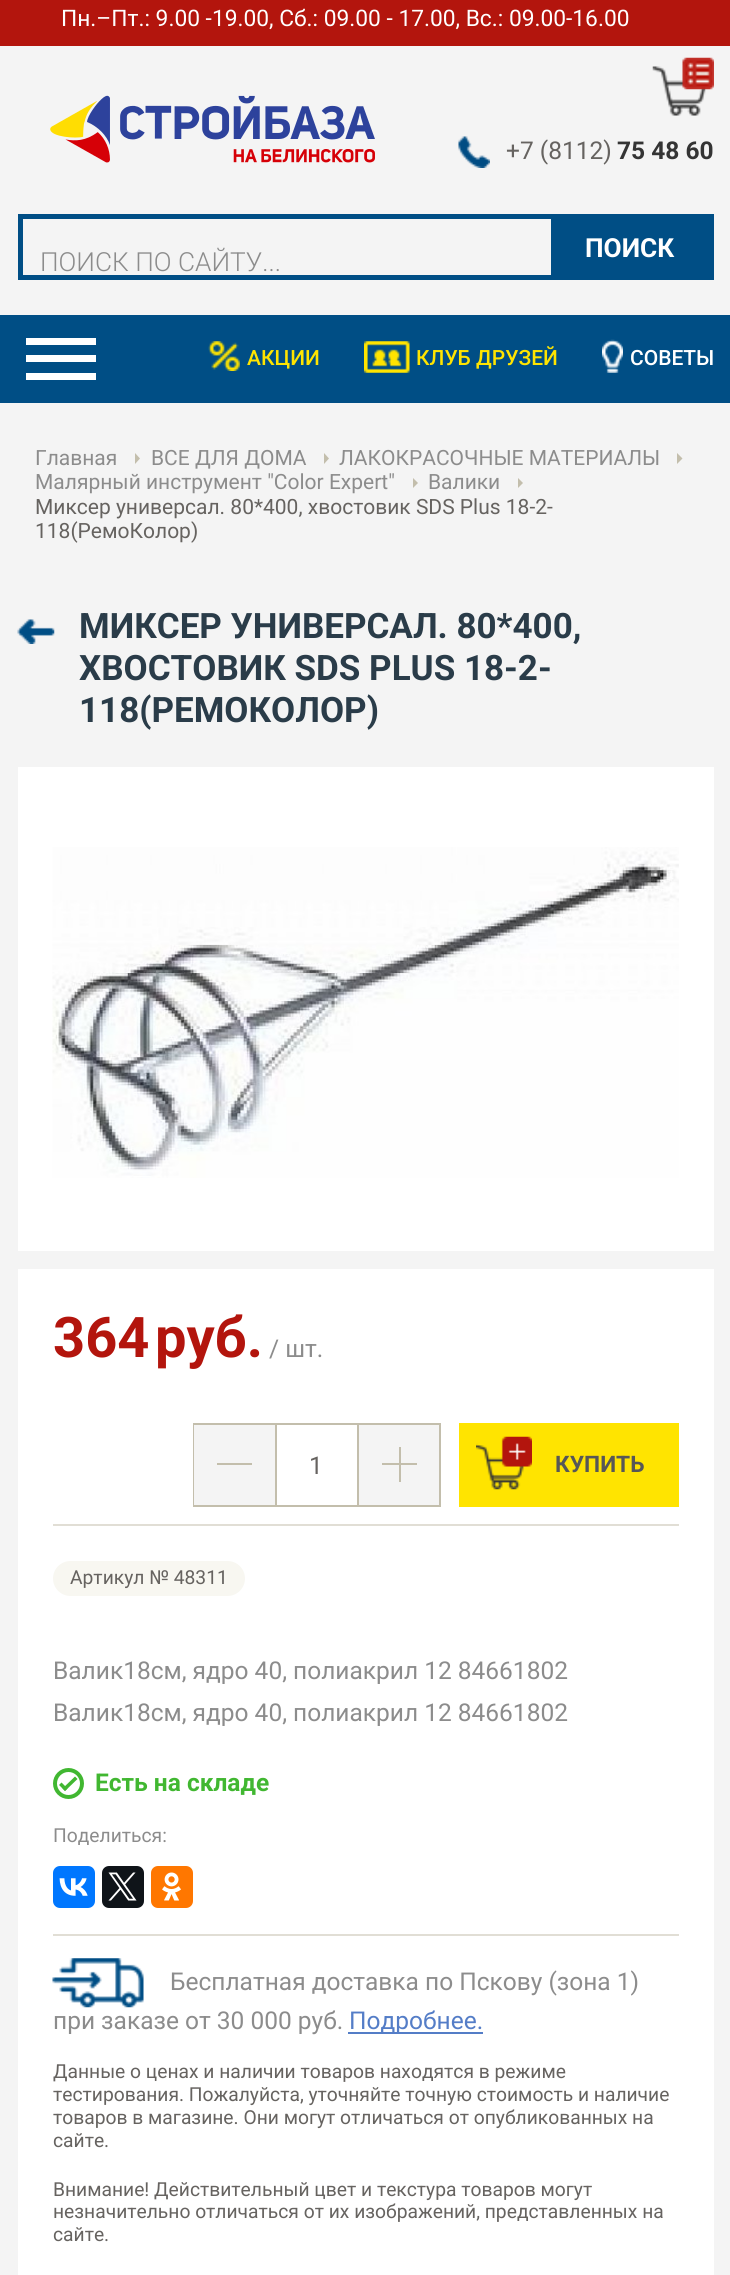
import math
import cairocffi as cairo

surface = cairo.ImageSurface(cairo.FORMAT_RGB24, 730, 2275)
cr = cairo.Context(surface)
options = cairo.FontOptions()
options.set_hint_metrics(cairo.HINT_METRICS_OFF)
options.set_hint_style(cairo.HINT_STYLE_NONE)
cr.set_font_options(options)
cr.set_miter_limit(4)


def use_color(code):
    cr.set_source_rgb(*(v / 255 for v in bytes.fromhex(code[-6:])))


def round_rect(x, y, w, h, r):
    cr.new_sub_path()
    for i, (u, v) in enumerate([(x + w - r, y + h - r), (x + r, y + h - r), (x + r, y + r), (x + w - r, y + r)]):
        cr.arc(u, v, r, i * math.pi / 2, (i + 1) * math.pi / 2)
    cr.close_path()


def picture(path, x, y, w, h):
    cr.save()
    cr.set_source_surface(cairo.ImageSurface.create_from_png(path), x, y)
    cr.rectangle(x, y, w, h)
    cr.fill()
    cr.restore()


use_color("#f4f4f4")
cr.paint()
use_color("#b3150d")
cr.rectangle(0, 0, 730, 46)
cr.fill()
cr.select_font_face("Roboto")
cr.set_font_size(22.75)
use_color("#ffffff")
cr.move_to(61, 26)
cr.show_text("Пн.–Пт.: 9.00 -19.00, Сб.: 09.00 - 17.00, Вс.: 09.00-16.00")
picture("img1.png", 652, 66, 54, 50)
picture("img2.png", 682, 57, 32, 33)
picture("img3.png", 50, 95, 325, 68)
picture("img4.png", 458, 136, 32, 32)
cr.set_font_size(24.5)
use_color("#666360")
cr.move_to(506, 159)
cr.show_text("+7 (8112)")
cr.select_font_face("Roboto", cairo.FONT_SLANT_NORMAL, cairo.FONT_WEIGHT_BOLD)
use_color("#343434")
cr.move_to(617, 159)
cr.show_text("75 48 60")
cr.rectangle(20.5, 216.5, 691, 61)
use_color("#004e85")
cr.set_line_width(5)
cr.stroke()
cr.select_font_face("Roboto Light")
cr.set_font_size(26.25)
use_color("#8c8c8c")
cr.move_to(40, 271)
cr.show_text("ПОИСК ПО САЙТУ...")
use_color("#004e85")
cr.rectangle(551, 219, 158, 56)
cr.fill()
cr.select_font_face("Roboto", cairo.FONT_SLANT_NORMAL, cairo.FONT_WEIGHT_BOLD)
use_color("#ffffff")
cr.move_to(585, 257)
cr.show_text("ПОИСК")
use_color("#004e85")
cr.rectangle(0, 315, 730, 88)
cr.fill()
use_color("#ffffff")
cr.rectangle(26, 355, 70, 7)
cr.fill()
cr.rectangle(26, 338, 70, 7)
cr.fill()
cr.rectangle(26, 373, 70, 7)
cr.fill()
picture("img5.png", 208, 341, 32, 30)
cr.select_font_face("Roboto Medium")
cr.set_font_size(21)
use_color("#ffe400")
cr.move_to(247, 365)
cr.show_text("АКЦИИ")
picture("img6.png", 364, 341, 46, 32)
cr.move_to(416, 365)
cr.show_text("КЛУБ ДРУЗЕЙ")
picture("img7.png", 602, 339, 21, 34)
use_color("#ffffff")
cr.move_to(630, 365)
cr.show_text("СОВЕТЫ")
cr.select_font_face("Roboto")
use_color("#8c8c8c")
cr.move_to(35, 465)
cr.show_text("Главная")
use_color("#c3beac")
cr.new_path()
cr.move_to(135, 464)
cr.line_to(135, 453)
cr.line_to(140, 458.5)
cr.close_path()
cr.fill()
use_color("#8c8c8c")
cr.move_to(151, 465)
cr.show_text("ВСЕ ДЛЯ ДОМА")
use_color("#c3beac")
cr.new_path()
cr.move_to(324, 464)
cr.line_to(324, 453)
cr.line_to(329, 458.5)
cr.close_path()
cr.fill()
use_color("#8c8c8c")
cr.move_to(339, 465)
cr.show_text("ЛАКОКРАСОЧНЫЕ МАТЕРИАЛЫ")
use_color("#c3beac")
cr.new_path()
cr.move_to(677, 464)
cr.line_to(677, 453)
cr.line_to(682.5, 458.5)
cr.close_path()
cr.fill()
use_color("#8c8c8c")
cr.move_to(35, 489)
cr.show_text("Малярный инструмент \"Color Expert\"")
use_color("#c3beac")
cr.new_path()
cr.move_to(413, 488)
cr.line_to(413, 478)
cr.line_to(418, 483)
cr.close_path()
cr.fill()
use_color("#8c8c8c")
cr.move_to(428, 489)
cr.show_text("Валики")
use_color("#c3beac")
cr.new_path()
cr.move_to(518, 488)
cr.line_to(518, 478)
cr.line_to(523, 483)
cr.close_path()
cr.fill()
use_color("#666360")
cr.move_to(35, 514)
cr.show_text("Миксер универсал. 80*400, хвостовик SDS Plus 18-2-")
cr.move_to(35, 538)
cr.show_text("118(РемоКолор)")
picture("img8.png", 17, 619, 38, 25)
cr.select_font_face("Roboto", cairo.FONT_SLANT_NORMAL, cairo.FONT_WEIGHT_BOLD)
cr.set_font_size(35)
use_color("#2a3c49")
cr.move_to(79, 638)
cr.show_text("МИКСЕР УНИВЕРСАЛ. 80*400,")
cr.move_to(79, 680)
cr.show_text("ХВОСТОВИК SDS PLUS 18-2-")
cr.move_to(79, 722)
cr.show_text("118(РЕМОКОЛОР)")
use_color("#ffffff")
cr.rectangle(18, 767, 696, 484)
cr.fill()
picture("img9.png", 52, 847, 627, 331)
cr.rectangle(18, 1269, 696, 1006)
cr.fill()
cr.set_font_size(56)
use_color("#b3150d")
cr.move_to(53, 1357)
cr.show_text("364")
cr.move_to(155, 1357)
cr.show_text("руб.")
cr.select_font_face("Roboto")
cr.set_font_size(24.5)
use_color("#8c8c8c")
cr.move_to(269, 1357)
cr.show_text("/ шт.")
cr.rectangle(194, 1424, 246, 82)
use_color("#c3beac")
cr.set_line_width(2)
cr.stroke()
use_color("#f4f4f4")
cr.rectangle(194, 1425, 81, 80)
cr.fill()
use_color("#c3beac")
cr.rectangle(217, 1463, 35, 2)
cr.fill()
cr.rectangle(357, 1425, 2, 80)
cr.fill()
cr.rectangle(275, 1425, 2, 80)
cr.fill()
use_color("#666360")
cr.move_to(309, 1474)
cr.show_text("1")
use_color("#f4f4f4")
cr.rectangle(359, 1425, 80, 80)
cr.fill()
use_color("#c3beac")
cr.rectangle(382, 1463, 35, 2)
cr.fill()
cr.rectangle(399, 1447, 2, 35)
cr.fill()
use_color("#ffe400")
cr.rectangle(459, 1423, 220, 84)
cr.fill()
picture("img10.png", 476, 1436, 56, 54)
cr.select_font_face("Roboto", cairo.FONT_SLANT_NORMAL, cairo.FONT_WEIGHT_BOLD)
cr.set_font_size(22.75)
use_color("#575757")
cr.move_to(555, 1472)
cr.show_text("КУПИТЬ")
use_color("#e1ded5")
cr.rectangle(53, 1524, 626, 2)
cr.fill()
use_color("#f8f7f1")
round_rect(53, 1561, 192, 35, 17.5)
cr.fill()
cr.select_font_face("Roboto")
cr.set_font_size(19.25)
use_color("#666360")
cr.move_to(70, 1584)
cr.show_text("Артикул № 48311")
cr.set_font_size(24.5)
use_color("#8c8c8c")
cr.move_to(53, 1679)
cr.show_text("Валик18см, ядро 40, полиакрил 12 84661802")
cr.move_to(53, 1721)
cr.show_text("Валик18см, ядро 40, полиакрил 12 84661802")
cr.new_path()
cr.arc(68.5, 1783.5, 13.5, 0, 2 * math.pi)
use_color("#41b731")
cr.set_line_width(4)
cr.stroke()
cr.new_path()
cr.move_to(77.5, 1779)
cr.line_to(65, 1791)
cr.line_to(62.5, 1788.5)
cr.line_to(75, 1776.5)
cr.close_path()
cr.fill()
cr.new_path()
cr.move_to(67.5, 1788.5)
cr.line_to(65, 1791)
cr.line_to(59, 1785)
cr.line_to(61.5, 1782.5)
cr.close_path()
cr.fill()
cr.select_font_face("Roboto", cairo.FONT_SLANT_NORMAL, cairo.FONT_WEIGHT_BOLD)
cr.move_to(95, 1791)
cr.show_text("Есть на складе")
cr.select_font_face("Roboto")
cr.set_font_size(19.25)
use_color("#8c8c8c")
cr.move_to(53, 1842)
cr.show_text("Поделиться:")
use_color("#0077ff")
round_rect(53, 1866, 42, 42, 7)
cr.fill()
picture("img11.png", 59, 1878, 29, 18)
use_color("#0f1419")
round_rect(102, 1866, 42, 42, 7)
cr.fill()
picture("img12.png", 108, 1872, 29, 29)
use_color("#ff7700")
round_rect(151, 1866, 42, 42, 7)
cr.fill()
picture("img13.png", 162, 1872, 19, 29)
use_color("#e1ded5")
cr.rectangle(53, 1934, 626, 2)
cr.fill()
picture("img14.png", 52, 1958, 92, 50)
cr.set_font_size(24.5)
use_color("#8c8c8c")
cr.move_to(170, 1990)
cr.show_text("Бесплатная доставка по Пскову (зона 1)")
cr.move_to(53, 2029)
cr.show_text("при заказе от 30 000 руб.")
use_color("#547dc7")
cr.rectangle(348, 2032, 135, 2)
cr.fill()
cr.move_to(349, 2029)
cr.show_text("Подробнее.")
cr.set_font_size(19.25)
use_color("#666360")
cr.move_to(53, 2078)
cr.show_text("Данные о ценах и наличии товаров находятся в режиме")
cr.move_to(53, 2101)
cr.show_text("тестирования. Пожалуйста, уточняйте точную стоимость и наличие")
cr.move_to(53, 2124)
cr.show_text("товаров в магазине. Они могут отличаться от опубликованных на")
cr.move_to(53, 2147)
cr.show_text("сайте.")
cr.move_to(53, 2196)
cr.show_text("Внимание! Действительный цвет и текстура товаров могут")
cr.move_to(53, 2218)
cr.show_text("незначительно отличаться от их изображений, представленных на")
cr.move_to(53, 2241)
cr.show_text("сайте.")
surface.write_to_png("result.png")
